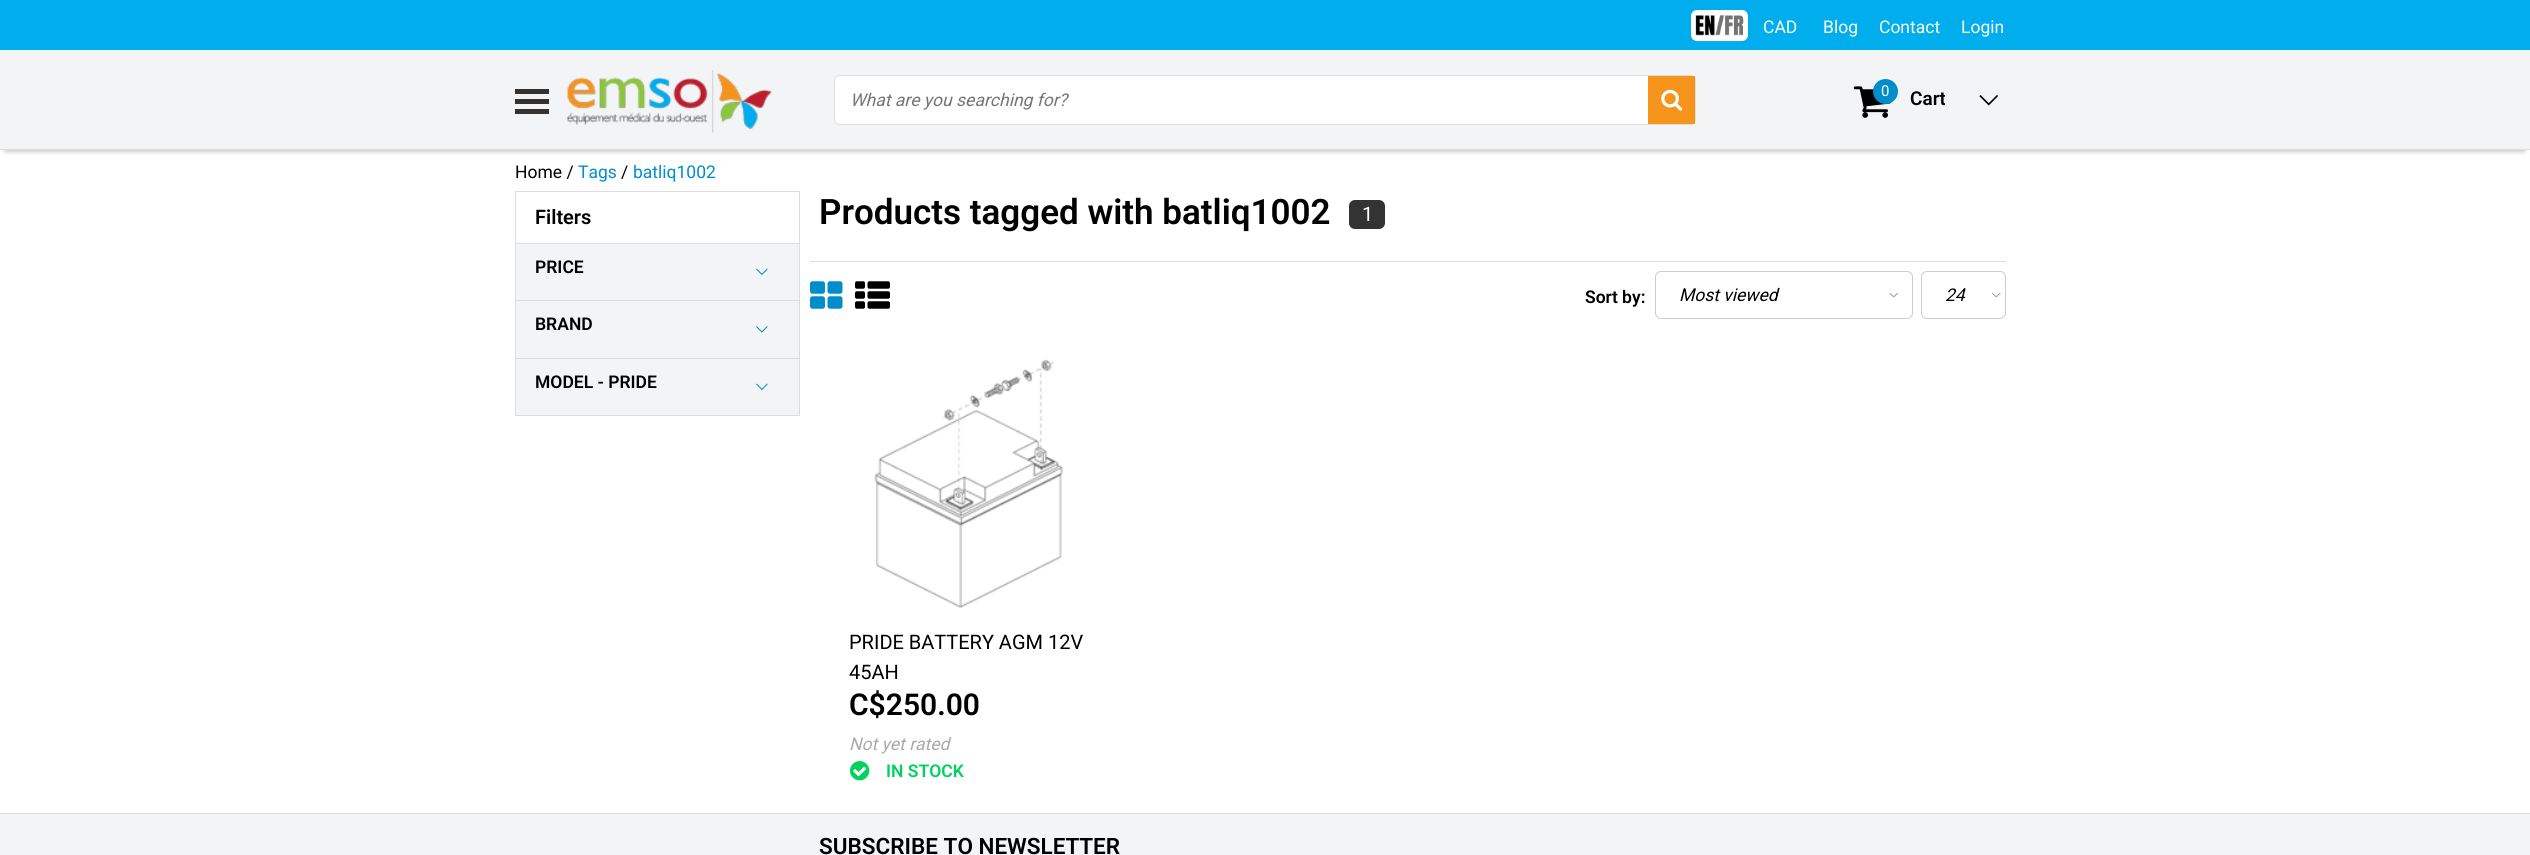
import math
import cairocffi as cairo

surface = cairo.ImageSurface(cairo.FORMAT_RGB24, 2530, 855)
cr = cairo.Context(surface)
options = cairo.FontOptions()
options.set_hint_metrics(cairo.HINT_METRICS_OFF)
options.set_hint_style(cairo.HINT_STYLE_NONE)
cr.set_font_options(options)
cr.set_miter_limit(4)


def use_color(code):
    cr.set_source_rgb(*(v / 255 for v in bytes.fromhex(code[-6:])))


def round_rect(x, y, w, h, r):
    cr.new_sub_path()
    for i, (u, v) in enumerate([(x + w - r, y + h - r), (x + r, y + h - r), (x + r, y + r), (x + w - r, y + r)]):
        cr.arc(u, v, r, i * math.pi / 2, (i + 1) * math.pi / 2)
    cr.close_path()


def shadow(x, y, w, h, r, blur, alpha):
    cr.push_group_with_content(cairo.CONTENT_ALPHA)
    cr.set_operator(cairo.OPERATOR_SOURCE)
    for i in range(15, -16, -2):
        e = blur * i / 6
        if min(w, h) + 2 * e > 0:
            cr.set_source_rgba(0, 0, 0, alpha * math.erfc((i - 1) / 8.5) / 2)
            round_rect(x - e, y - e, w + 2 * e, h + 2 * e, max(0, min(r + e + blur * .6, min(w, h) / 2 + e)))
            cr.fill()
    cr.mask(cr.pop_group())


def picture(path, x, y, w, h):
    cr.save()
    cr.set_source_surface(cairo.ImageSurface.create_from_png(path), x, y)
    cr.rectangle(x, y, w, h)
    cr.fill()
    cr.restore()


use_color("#ffffff")
cr.paint()
use_color("#00aded")
cr.rectangle(0, 0, 2530, 50)
cr.fill()
use_color("#ffffff")
round_rect(1691, 10, 57, 31, 6)
cr.fill()
picture("img1.png", 1695, 15, 49, 27)
cr.select_font_face("Roboto")
cr.set_font_size(17.5)
cr.move_to(1763, 33)
cr.show_text("CAD")
cr.move_to(1823, 33)
cr.show_text("Blog")
cr.move_to(1879, 33)
cr.show_text("Contact")
cr.move_to(1961, 33)
cr.show_text("Login")
use_color("#000000")
shadow(6, 63, 2518, 87, 0, 3, 0.4)
use_color("#f3f4f6")
cr.rectangle(0, 50, 2530, 99)
cr.fill()
use_color("#dddddd")
cr.rectangle(0, 149, 2530, 1)
cr.fill()
use_color("#34312f")
cr.rectangle(515, 89, 34, 5)
cr.fill()
cr.rectangle(515, 99, 34, 5)
cr.fill()
cr.rectangle(515, 109, 34, 5)
cr.fill()
picture("img2.png", 567, 70, 205, 63)
round_rect(834.5, 75.5, 861, 49, 5.5)
use_color("#dddddd")
cr.set_line_width(1)
cr.stroke()
use_color("#ffffff")
round_rect(835, 76, 860, 48, 6)
cr.fill()
cr.select_font_face("Roboto", cairo.FONT_SLANT_ITALIC)
use_color("#757575")
cr.move_to(850, 106)
cr.show_text("What are you searching for?")
use_color("#f6941b")
cr.rectangle(1648, 76, 47, 48)
cr.fill()
picture("img3.png", 1661, 89, 22, 22)
picture("img4.png", 1853, 86, 38, 32)
use_color("#008dcb")
cr.arc(1885.5, 91.5, 12.5, 0, 2 * math.pi)
cr.fill()
cr.select_font_face("Roboto")
cr.set_font_size(15)
use_color("#ffffff")
cr.move_to(1881, 96)
cr.show_text("0")
cr.select_font_face("Roboto SemiBold")
cr.set_font_size(19)
use_color("#000000")
cr.move_to(1910, 105)
cr.show_text("Cart")
picture("img5.png", 1979, 95, 19, 11)
cr.select_font_face("Roboto")
cr.set_font_size(17.5)
cr.move_to(515, 178)
cr.show_text("Home /")
use_color("#008dcb")
cr.move_to(578, 178)
cr.show_text("Tags")
use_color("#000000")
cr.move_to(621, 178)
cr.show_text("/")
use_color("#008dcb")
cr.move_to(633, 178)
cr.show_text("batliq1002")
use_color("#dddddd")
cr.rectangle(515, 191, 285, 1)
cr.fill()
cr.rectangle(799, 191, 1, 52)
cr.fill()
cr.rectangle(515, 191, 1, 52)
cr.fill()
cr.select_font_face("Roboto SemiBold")
cr.set_font_size(20)
use_color("#000000")
cr.move_to(535, 224)
cr.show_text("Filters")
use_color("#dddddd")
cr.rectangle(515, 415, 285, 1)
cr.fill()
use_color("#f3f4f6")
cr.rectangle(516, 244, 283, 56)
cr.fill()
use_color("#dddddd")
cr.rectangle(515, 243, 285, 1)
cr.fill()
cr.rectangle(799, 243, 1, 57)
cr.fill()
cr.rectangle(515, 243, 1, 57)
cr.fill()
cr.set_font_size(17.5)
use_color("#000000")
cr.move_to(535, 273)
cr.show_text("PRICE")
picture("img6.png", 756, 268, 12, 8)
use_color("#f3f4f6")
cr.rectangle(516, 301, 283, 57)
cr.fill()
use_color("#dddddd")
cr.rectangle(515, 300, 285, 1)
cr.fill()
cr.rectangle(799, 300, 1, 58)
cr.fill()
cr.rectangle(515, 300, 1, 58)
cr.fill()
use_color("#000000")
cr.move_to(535, 330)
cr.show_text("BRAND")
picture("img7.png", 756, 326, 12, 7)
use_color("#f3f4f6")
cr.rectangle(516, 359, 283, 56)
cr.fill()
use_color("#dddddd")
cr.rectangle(515, 358, 285, 1)
cr.fill()
cr.rectangle(799, 358, 1, 57)
cr.fill()
cr.rectangle(515, 358, 1, 57)
cr.fill()
use_color("#000000")
cr.move_to(535, 388)
cr.show_text("MODEL - PRIDE")
picture("img6.png", 756, 383, 12, 8)
cr.set_font_size(35)
cr.move_to(819, 224)
cr.show_text("Products tagged with batliq1002")
use_color("#333333")
round_rect(1349, 200, 36, 29, 6)
cr.fill()
cr.select_font_face("Roboto")
cr.set_font_size(20)
use_color("#ffffff")
cr.move_to(1362, 221)
cr.show_text("1")
use_color("#dddddd")
cr.rectangle(810, 261, 1196, 1)
cr.fill()
picture("img8.png", 810, 281, 33, 28)
picture("img9.png", 855, 281, 35, 28)
cr.select_font_face("Roboto SemiBold")
cr.set_font_size(17.5)
use_color("#000000")
cr.move_to(1585, 303)
cr.show_text("Sort by:")
picture("img10.png", 1889, 293, 10, 5)
round_rect(1655.5, 271.5, 257, 47, 5.5)
use_color("#cccccc")
cr.stroke()
cr.select_font_face("Roboto", cairo.FONT_SLANT_ITALIC)
use_color("#000000")
cr.move_to(1679, 301)
cr.show_text("Most viewed")
picture("img11.png", 1991, 293, 10, 5)
round_rect(1921.5, 271.5, 84, 47, 5.5)
use_color("#cccccc")
cr.stroke()
use_color("#000000")
cr.move_to(1945, 301)
cr.show_text("24")
picture("img12.png", 874, 359, 189, 249)
cr.select_font_face("Roboto")
cr.set_font_size(20)
cr.move_to(849, 649)
cr.show_text("PRIDE BATTERY AGM 12V")
cr.move_to(849, 679)
cr.show_text("45AH")
cr.select_font_face("Roboto SemiBold")
cr.set_font_size(30)
cr.move_to(849, 715)
cr.show_text("C$250.00")
cr.select_font_face("Roboto", cairo.FONT_SLANT_ITALIC)
cr.set_font_size(17.5)
use_color("#aaaaaa")
cr.move_to(849, 750)
cr.show_text("Not yet rated")
picture("img13.png", 850, 761, 20, 20)
cr.select_font_face("Roboto SemiBold")
use_color("#00d25e")
cr.move_to(886, 777)
cr.show_text("IN STOCK")
use_color("#f3f4f6")
cr.rectangle(0, 814, 2530, 41)
cr.fill()
use_color("#dddddd")
cr.rectangle(0, 813, 2530, 1)
cr.fill()
cr.set_font_size(22.5)
use_color("#000000")
cr.move_to(819, 854)
cr.show_text("SUBSCRIBE TO NEWSLETTER")
surface.write_to_png("result.png")
